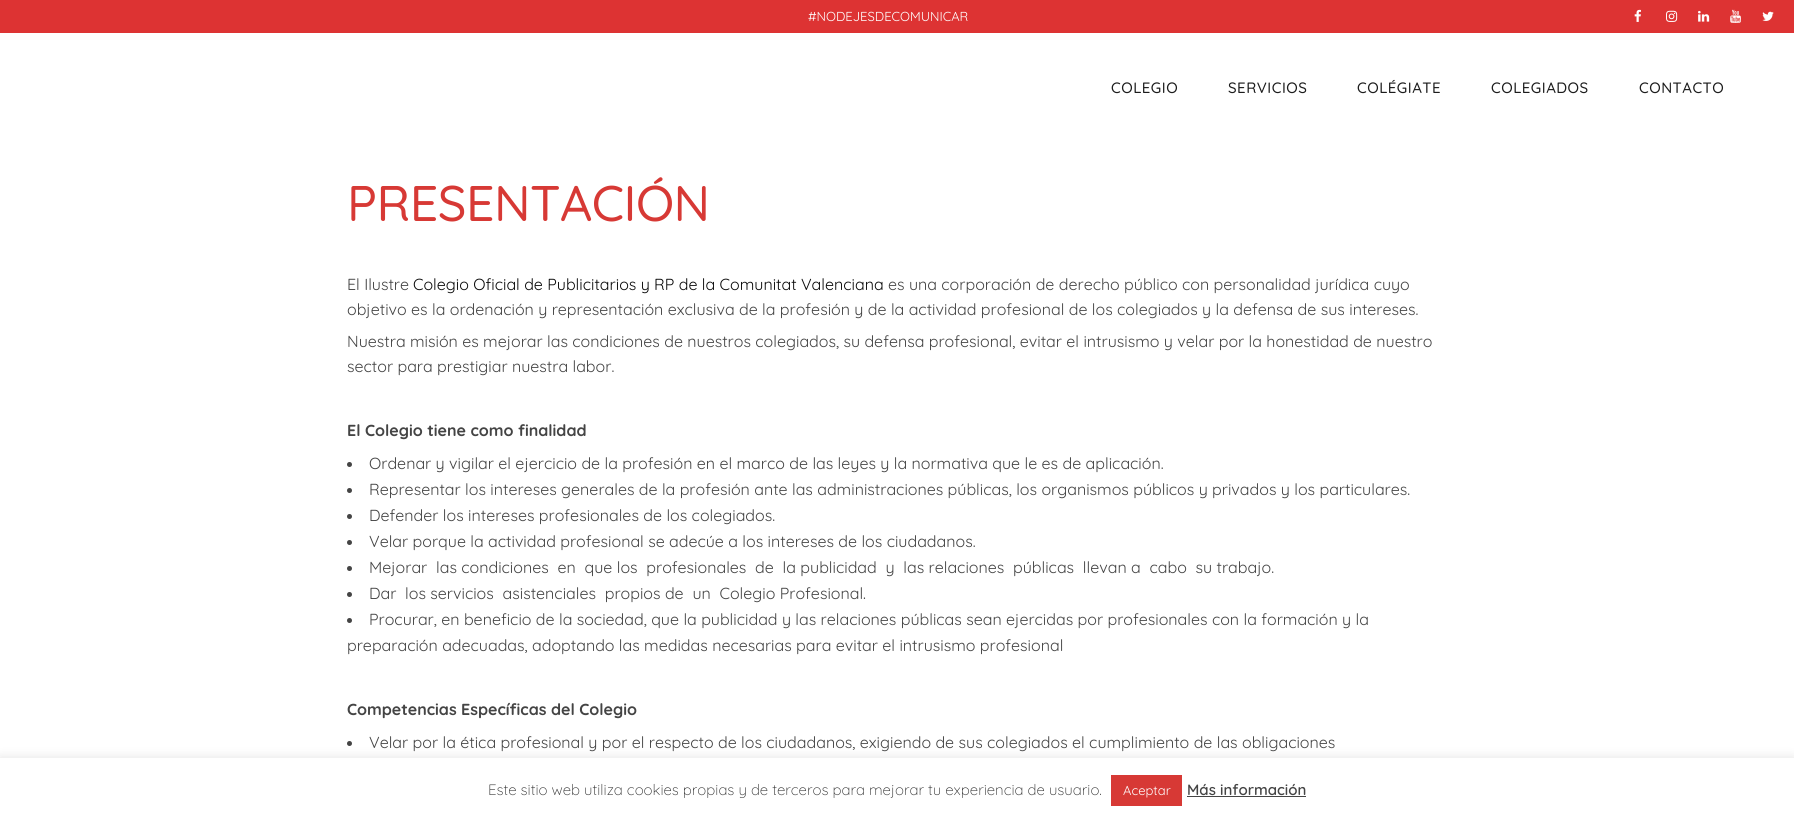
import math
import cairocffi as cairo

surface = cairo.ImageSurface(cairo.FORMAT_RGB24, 1794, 818)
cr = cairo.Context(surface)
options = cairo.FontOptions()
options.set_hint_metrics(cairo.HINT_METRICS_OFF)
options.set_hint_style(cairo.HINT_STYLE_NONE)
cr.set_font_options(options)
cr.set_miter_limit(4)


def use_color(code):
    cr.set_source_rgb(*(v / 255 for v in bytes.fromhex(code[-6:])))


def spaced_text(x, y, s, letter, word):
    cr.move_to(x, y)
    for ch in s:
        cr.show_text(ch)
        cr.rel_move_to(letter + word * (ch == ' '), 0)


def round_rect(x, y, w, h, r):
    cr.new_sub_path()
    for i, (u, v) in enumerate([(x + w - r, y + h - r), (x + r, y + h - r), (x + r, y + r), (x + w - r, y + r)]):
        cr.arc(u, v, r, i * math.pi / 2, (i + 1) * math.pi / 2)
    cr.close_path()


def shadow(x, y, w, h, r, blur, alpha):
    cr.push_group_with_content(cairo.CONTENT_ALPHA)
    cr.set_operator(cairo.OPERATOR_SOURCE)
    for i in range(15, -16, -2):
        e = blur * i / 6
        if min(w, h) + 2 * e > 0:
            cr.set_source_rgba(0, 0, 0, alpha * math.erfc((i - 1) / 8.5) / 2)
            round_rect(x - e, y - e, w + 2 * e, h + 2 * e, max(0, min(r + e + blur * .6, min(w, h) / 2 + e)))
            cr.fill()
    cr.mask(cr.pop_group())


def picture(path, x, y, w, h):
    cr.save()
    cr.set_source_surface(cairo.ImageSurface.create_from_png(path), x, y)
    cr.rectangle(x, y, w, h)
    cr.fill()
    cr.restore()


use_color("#ffffff")
cr.paint()
use_color("#dd3333")
cr.rectangle(0, 0, 1794, 33)
cr.fill()
cr.select_font_face("Quicksand")
cr.set_font_size(13)
use_color("#ffffff")
cr.move_to(808, 21)
cr.show_text("#NODEJESDECOMUNICAR")
picture("img1.png", 1634, 9, 7, 13)
picture("img2.png", 1666, 10, 12, 12)
picture("img3.png", 1698, 10, 12, 12)
picture("img4.png", 1730, 9, 11, 14)
picture("img5.png", 1762, 11, 12, 10)
cr.select_font_face("Quicksand Medium")
cr.set_font_size(15)
use_color("#1c1c1c")
spaced_text(1111, 93, "COLEGIO", 0.5, 0)
spaced_text(1228, 93, "SERVICIOS", 0.5, 0)
spaced_text(1357, 93, "COLÉGIATE", 0.5, 0)
spaced_text(1491, 93, "COLEGIADOS", 0.5, 0)
spaced_text(1639, 93, "CONTACTO", 0.5, 0)
cr.set_font_size(50)
use_color("#d73935")
spaced_text(347, 221, "PRESENTACIÓN", -0.5, 0)
cr.select_font_face("Quicksand")
cr.set_font_size(16)
use_color("#444444")
cr.move_to(347, 290)
cr.show_text("El Ilustre")
use_color("#0a0a0a")
cr.move_to(413, 290)
cr.show_text("Colegio Oficial de Publicitarios y RP de la Comunitat Valenciana")
use_color("#444444")
cr.move_to(888, 290)
cr.show_text("es una corporación de derecho público con personalidad jurídica cuyo")
cr.move_to(347, 315)
cr.show_text("objetivo es la ordenación y representación exclusiva de la profesión y de la actividad profesional de los colegiados y la defensa de sus intereses.")
cr.move_to(347, 347)
cr.show_text("Nuestra misión es mejorar las condiciones de nuestros colegiados, su defensa profesional, evitar el intrusismo y velar por la honestidad de nuestro")
cr.move_to(347, 372)
cr.show_text("sector para prestigiar nuestra labor.")
cr.select_font_face("Quicksand", cairo.FONT_SLANT_NORMAL, cairo.FONT_WEIGHT_BOLD)
cr.move_to(347, 436)
cr.show_text("El Colegio tiene como finalidad")
cr.new_path()
cr.arc(349.5, 464.5, 2.5, 0, 2 * math.pi)
cr.fill()
cr.select_font_face("Quicksand")
cr.move_to(369, 469)
cr.show_text("Ordenar y vigilar el ejercicio de la profesión en el marco de las leyes y la normativa que le es de aplicación.")
cr.new_path()
cr.arc(349.5, 490.5, 2.5, 0, 2 * math.pi)
cr.fill()
cr.move_to(369, 495)
cr.show_text("Representar los intereses generales de la profesión ante las administraciones públicas, los organismos públicos y privados y los particulares.")
cr.new_path()
cr.arc(349.5, 516.5, 2.5, 0, 2 * math.pi)
cr.fill()
cr.move_to(369, 521)
cr.show_text("Defender los intereses profesionales de los colegiados.")
cr.new_path()
cr.arc(349.5, 542.5, 2.5, 0, 2 * math.pi)
cr.fill()
cr.move_to(369, 547)
cr.show_text("Velar porque la actividad profesional se adecúe a los intereses de los ciudadanos.")
cr.new_path()
cr.arc(349.5, 568.5, 2.5, 0, 2 * math.pi)
cr.fill()
cr.move_to(369, 573)
cr.show_text("Mejorar  las condiciones  en  que los  profesionales  de  la publicidad  y  las relaciones  públicas  llevan a  cabo  su trabajo.")
cr.new_path()
cr.arc(349.5, 594.5, 2.5, 0, 2 * math.pi)
cr.fill()
cr.move_to(369, 599)
cr.show_text("Dar  los servicios  asistenciales  propios de  un  Colegio Profesional.")
cr.new_path()
cr.arc(349.5, 620.5, 2.5, 0, 2 * math.pi)
cr.fill()
cr.move_to(369, 625)
cr.show_text("Procurar, en beneficio de la sociedad, que la publicidad y las relaciones públicas sean ejercidas por profesionales con la formación y la")
cr.move_to(347, 651)
cr.show_text("preparación adecuadas, adoptando las medidas necesarias para evitar el intrusismo profesional")
cr.select_font_face("Quicksand", cairo.FONT_SLANT_NORMAL, cairo.FONT_WEIGHT_BOLD)
cr.move_to(347, 715)
cr.show_text("Competencias Específicas del Colegio")
cr.new_path()
cr.arc(349.5, 743.5, 2.5, 0, 2 * math.pi)
cr.fill()
cr.select_font_face("Quicksand")
cr.move_to(369, 748)
cr.show_text("Velar por la ética profesional y por el respecto de los ciudadanos, exigiendo de sus colegiados el cumplimiento de las obligaciones")
use_color("#acabab")
shadow(0, 757, 1794, 60, 0, 5, 0.3)
use_color("#ffffff")
cr.rectangle(0, 758, 1794, 60)
cr.fill()
cr.select_font_face("Quicksand Light")
cr.set_font_size(15)
use_color("#333333")
cr.move_to(488, 795)
cr.show_text("Este sitio web utiliza cookies propias y de terceros para mejorar tu experiencia de usuario.")
use_color("#d73935")
cr.rectangle(1111, 775, 71, 31)
cr.fill()
cr.select_font_face("Quicksand")
cr.set_font_size(13)
use_color("#ffffff")
cr.move_to(1123, 795)
cr.show_text("Aceptar")
cr.select_font_face("Quicksand SemiBold")
cr.set_font_size(15)
use_color("#444444")
cr.move_to(1187, 795)
cr.show_text("Más información")
cr.rectangle(1187, 796, 119, 1)
cr.fill()
surface.write_to_png("result.png")
